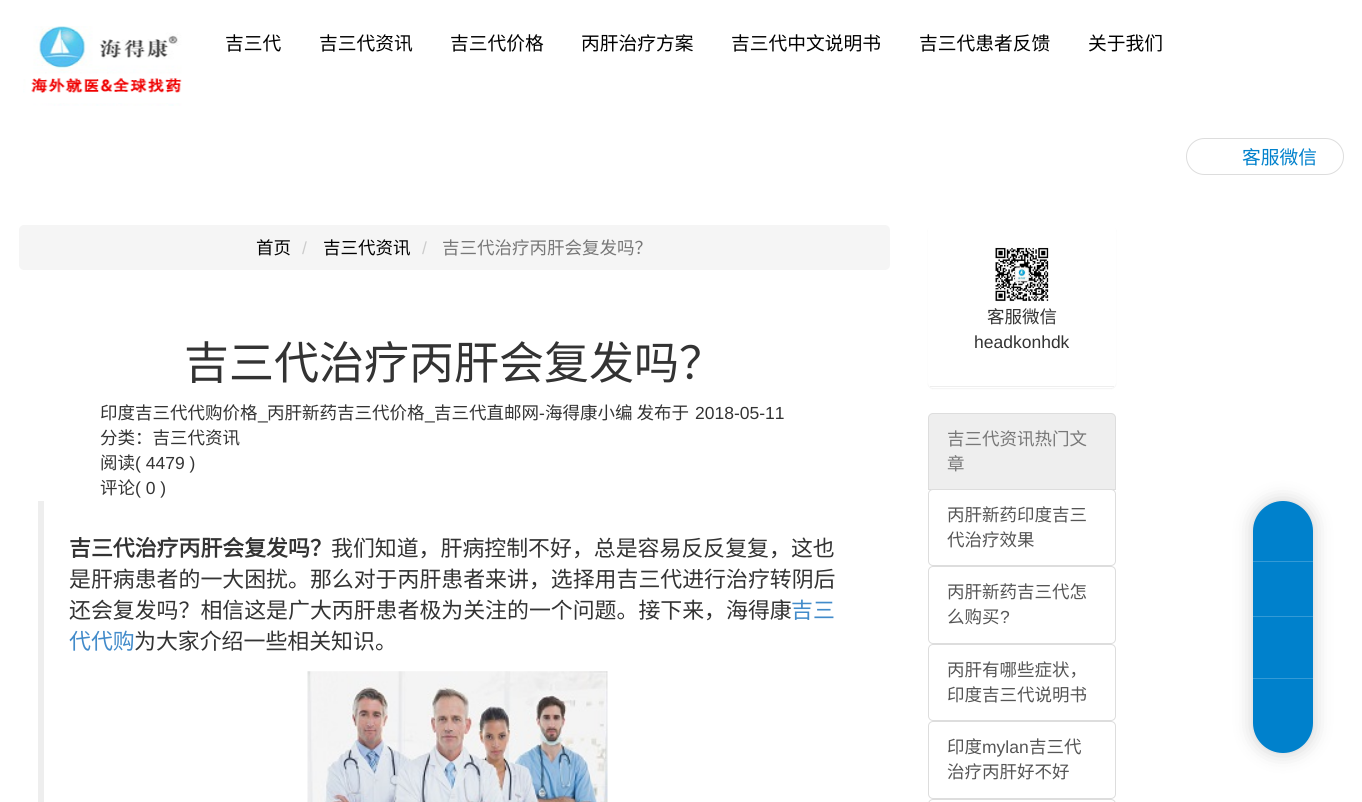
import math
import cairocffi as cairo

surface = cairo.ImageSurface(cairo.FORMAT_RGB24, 1362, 802)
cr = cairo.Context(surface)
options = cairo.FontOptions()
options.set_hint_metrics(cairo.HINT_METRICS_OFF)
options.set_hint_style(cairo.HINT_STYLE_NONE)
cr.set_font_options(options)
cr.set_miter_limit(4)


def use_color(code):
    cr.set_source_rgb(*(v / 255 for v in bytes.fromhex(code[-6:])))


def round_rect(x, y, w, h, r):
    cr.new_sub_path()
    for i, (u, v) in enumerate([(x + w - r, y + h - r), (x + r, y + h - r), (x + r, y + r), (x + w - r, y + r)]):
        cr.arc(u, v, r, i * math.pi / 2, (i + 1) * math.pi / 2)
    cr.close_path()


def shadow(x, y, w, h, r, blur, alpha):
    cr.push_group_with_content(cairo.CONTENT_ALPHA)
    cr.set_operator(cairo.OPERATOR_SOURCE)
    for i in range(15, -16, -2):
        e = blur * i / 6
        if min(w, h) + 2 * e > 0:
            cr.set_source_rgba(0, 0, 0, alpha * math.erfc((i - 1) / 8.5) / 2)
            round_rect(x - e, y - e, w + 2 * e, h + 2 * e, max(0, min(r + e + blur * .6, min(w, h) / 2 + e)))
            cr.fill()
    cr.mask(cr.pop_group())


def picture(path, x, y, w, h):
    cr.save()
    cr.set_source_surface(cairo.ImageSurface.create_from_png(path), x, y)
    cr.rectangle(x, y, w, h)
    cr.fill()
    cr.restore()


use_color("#ffffff")
cr.paint()
picture("img1.png", 23, 26, 159, 80)
cr.select_font_face("Noto Sans CJK SC")
cr.set_font_size(18.75)
use_color("#000000")
cr.move_to(225, 50)
cr.show_text("吉三代")
cr.move_to(319, 50)
cr.show_text("吉三代资讯")
cr.move_to(450, 50)
cr.show_text("吉三代价格")
cr.move_to(581, 50)
cr.show_text("丙肝治疗方案")
cr.move_to(731, 50)
cr.show_text("吉三代中文说明书")
cr.move_to(919, 50)
cr.show_text("吉三代患者反馈")
cr.move_to(1088, 50)
cr.show_text("关于我们")
round_rect(1186.5, 138.5, 157, 36, 18)
use_color("#dddddd")
cr.set_line_width(1)
cr.stroke()
use_color("#0081cc")
cr.move_to(1242, 164)
cr.show_text("客服微信")
use_color("#f5f5f5")
round_rect(19, 225, 871, 45, 5)
cr.fill()
cr.set_font_size(17.5)
use_color("#000000")
cr.move_to(256, 254)
cr.show_text("首页")
cr.select_font_face("Liberation Sans")
use_color("#cccccc")
cr.move_to(302, 254)
cr.show_text("/")
cr.select_font_face("Noto Sans CJK SC")
use_color("#000000")
cr.move_to(323, 254)
cr.show_text("吉三代资讯")
cr.select_font_face("Liberation Sans")
use_color("#cccccc")
cr.move_to(422, 254)
cr.show_text("/")
cr.select_font_face("Noto Sans CJK SC")
use_color("#777777")
cr.move_to(442, 254)
cr.show_text("吉三代治疗丙肝会复发吗？")
cr.set_font_size(45)
use_color("#333333")
cr.move_to(184, 379)
cr.show_text("吉三代治疗丙肝会复发吗？")
cr.set_font_size(17.5)
cr.move_to(100, 419)
cr.show_text("印度吉三代代购价格")
cr.move_to(267, 419)
cr.show_text("丙肝新药吉三代价格")
cr.move_to(434, 419)
cr.show_text("吉三代直邮网")
cr.select_font_face("Liberation Sans")
cr.move_to(539, 419)
cr.show_text("-")
cr.select_font_face("Noto Sans CJK SC")
cr.move_to(545, 419)
cr.show_text("海得康小编 发布于")
cr.select_font_face("Liberation Sans")
cr.move_to(695, 419)
cr.show_text("2018-05-11")
cr.move_to(258, 419)
cr.show_text("_")
cr.move_to(425, 419)
cr.show_text("_")
cr.select_font_face("Noto Sans CJK SC")
cr.move_to(100, 444)
cr.show_text("分类：吉三代资讯")
cr.move_to(100, 469)
cr.show_text("阅读")
cr.select_font_face("Liberation Sans")
cr.move_to(135, 469)
cr.show_text("( 4479 )")
cr.select_font_face("Noto Sans CJK SC")
cr.move_to(100, 494)
cr.show_text("评论")
cr.select_font_face("Liberation Sans")
cr.move_to(135, 494)
cr.show_text("( 0 )")
use_color("#eeeeee")
cr.rectangle(38, 501, 6, 301)
cr.fill()
cr.select_font_face("Noto Sans CJK SC", cairo.FONT_SLANT_NORMAL, cairo.FONT_WEIGHT_BOLD)
cr.set_font_size(21.9)
use_color("#333333")
cr.move_to(69, 556)
cr.show_text("吉三代治疗丙肝会复发吗？")
cr.select_font_face("Noto Sans CJK SC")
cr.move_to(331, 556)
cr.show_text("我们知道，肝病控制不好，总是容易反反复复，这也")
cr.move_to(69, 587)
cr.show_text("是肝病患者的一大困扰。那么对于丙肝患者来讲，选择用吉三代进行治疗转阴后")
cr.move_to(69, 618)
cr.show_text("还会复发吗？相信这是广大丙肝患者极为关注的一个问题。接下来，海得康")
use_color("#428bca")
cr.move_to(791, 618)
cr.show_text("吉三")
cr.move_to(69, 649)
cr.show_text("代代购")
use_color("#333333")
cr.move_to(134, 649)
cr.show_text("为大家介绍一些相关知识。")
picture("img2.png", 307, 671, 301, 131)
use_color("#000000")
shadow(928, 226, 188, 163, 5, 0.5, 0.05)
use_color("#ffffff")
round_rect(928, 225, 188, 163, 5)
cr.fill()
use_color("#eeeeee")
cr.rectangle(930, 386, 184, 1)
cr.fill()
picture("img3.png", 995, 247, 54, 55)
cr.set_font_size(17.5)
use_color("#333333")
cr.move_to(987, 323)
cr.show_text("客服微信")
cr.select_font_face("Liberation Sans")
cr.move_to(974, 348)
cr.show_text("headkonhdk")
use_color("#eeeeee")
cr.new_path()
cr.move_to(933, 413.5)
cr.line_to(1111, 413.5)
cr.curve_to(1113.5, 413.5, 1115.5, 415.5, 1115.5, 418)
cr.line_to(1115.5, 489.5)
cr.line_to(928.5, 489.5)
cr.line_to(928.5, 418)
cr.curve_to(928.5, 415.5, 930.5, 413.5, 933, 413.5)
cr.close_path()
cr.fill_preserve()
use_color("#dddddd")
cr.stroke()
cr.select_font_face("Noto Sans CJK SC")
use_color("#777777")
cr.move_to(947, 445)
cr.show_text("吉三代资讯热门文")
cr.move_to(947, 470)
cr.show_text("章")
use_color("#ffffff")
round_rect(928.5, 489.5, 187, 76, 4.5)
cr.fill_preserve()
use_color("#dddddd")
cr.stroke()
use_color("#555555")
cr.move_to(947, 521)
cr.show_text("丙肝新药印度吉三")
cr.move_to(947, 546)
cr.show_text("代治疗效果")
round_rect(928.5, 566.5, 187, 77, 4.5)
use_color("#dddddd")
cr.stroke()
use_color("#555555")
cr.move_to(947, 598)
cr.show_text("丙肝新药吉三代怎")
cr.move_to(947, 623)
cr.show_text("么购买")
cr.select_font_face("Liberation Sans")
cr.move_to(1000, 623)
cr.show_text("?")
round_rect(928.5, 644.5, 187, 76, 4.5)
use_color("#dddddd")
cr.stroke()
cr.select_font_face("Noto Sans CJK SC")
use_color("#555555")
cr.move_to(947, 676)
cr.show_text("丙肝有哪些症状，")
cr.move_to(947, 701)
cr.show_text("印度吉三代说明书")
round_rect(928.5, 721.5, 187, 77, 4.5)
use_color("#dddddd")
cr.stroke()
use_color("#555555")
cr.move_to(947, 753)
cr.show_text("印度")
cr.select_font_face("Liberation Sans")
cr.move_to(982, 753)
cr.show_text("mylan")
cr.select_font_face("Noto Sans CJK SC")
cr.move_to(1029, 753)
cr.show_text("吉三代")
cr.move_to(947, 778)
cr.show_text("治疗丙肝好不好")
round_rect(928.5, 799.5, 187, 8, 4.5)
use_color("#dddddd")
cr.stroke()
use_color("#000000")
shadow(1253, 501, 60, 252, 30, 9.5, 0.2)
use_color("#0081cc")
round_rect(1253, 501, 60, 252, 30)
cr.fill()
use_color("#339ad6")
cr.rectangle(1253, 561, 60, 1)
cr.fill()
cr.rectangle(1253, 616, 60, 1)
cr.fill()
cr.rectangle(1253, 678, 60, 1)
cr.fill()
surface.write_to_png("result.png")
